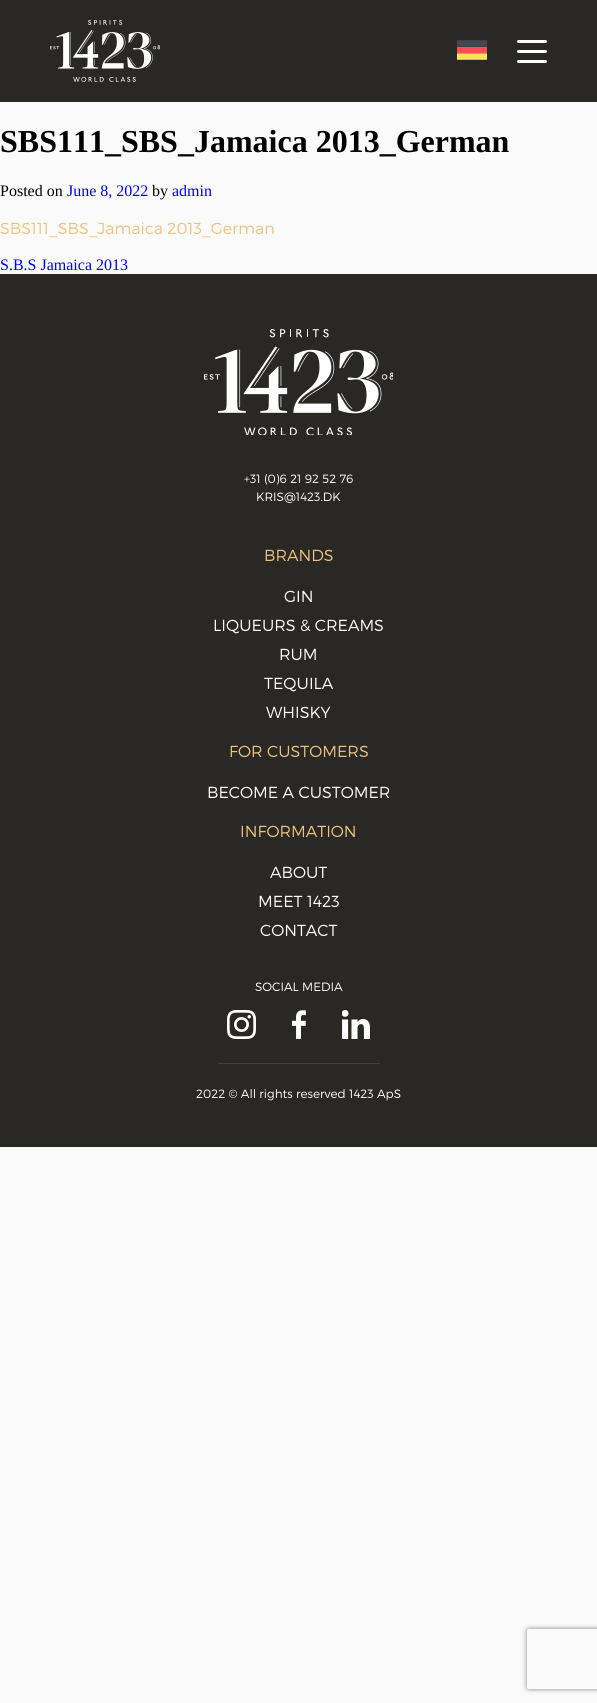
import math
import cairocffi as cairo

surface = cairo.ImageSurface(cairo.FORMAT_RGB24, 597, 1703)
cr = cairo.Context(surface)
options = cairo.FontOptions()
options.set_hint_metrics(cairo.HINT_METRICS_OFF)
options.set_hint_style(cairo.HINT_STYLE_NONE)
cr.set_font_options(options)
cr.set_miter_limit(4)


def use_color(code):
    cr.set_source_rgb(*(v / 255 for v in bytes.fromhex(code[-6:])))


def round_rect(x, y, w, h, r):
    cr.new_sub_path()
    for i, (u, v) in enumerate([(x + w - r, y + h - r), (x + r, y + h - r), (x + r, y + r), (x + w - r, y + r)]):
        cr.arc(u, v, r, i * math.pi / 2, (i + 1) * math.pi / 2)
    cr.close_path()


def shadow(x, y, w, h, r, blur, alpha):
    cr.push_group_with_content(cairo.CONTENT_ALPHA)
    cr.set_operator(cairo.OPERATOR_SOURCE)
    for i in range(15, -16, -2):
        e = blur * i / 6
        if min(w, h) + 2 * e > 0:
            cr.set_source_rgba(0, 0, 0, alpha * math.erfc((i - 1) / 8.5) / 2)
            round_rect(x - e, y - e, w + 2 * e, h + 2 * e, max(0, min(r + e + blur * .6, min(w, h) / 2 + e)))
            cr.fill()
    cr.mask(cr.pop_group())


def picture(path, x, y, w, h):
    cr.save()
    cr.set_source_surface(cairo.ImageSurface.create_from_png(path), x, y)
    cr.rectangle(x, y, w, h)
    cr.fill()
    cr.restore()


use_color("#fafafa")
cr.paint()
use_color("#2a2825")
cr.rectangle(0, 0, 597, 102)
cr.fill()
picture("img1.png", 50, 20, 110, 62)
picture("img2.png", 457, 40, 30, 20)
use_color("#ffffff")
round_rect(517, 40, 30, 3, 1.5)
cr.fill()
round_rect(517, 50, 30, 3, 1.5)
cr.fill()
round_rect(517, 60, 30, 3, 1.5)
cr.fill()
cr.select_font_face("Liberation Serif", cairo.FONT_SLANT_NORMAL, cairo.FONT_WEIGHT_BOLD)
cr.set_font_size(32)
use_color("#000000")
cr.move_to(0, 152)
cr.show_text("SBS111_SBS_Jamaica 2013_German")
cr.select_font_face("Liberation Serif")
cr.set_font_size(16)
cr.move_to(0, 196)
cr.show_text("Posted on")
use_color("#0000ee")
cr.move_to(67, 196)
cr.show_text("June 8, 2022")
use_color("#000000")
cr.move_to(152, 196)
cr.show_text("by")
use_color("#0000ee")
cr.move_to(172, 196)
cr.show_text("admin")
cr.select_font_face("Montserrat Light")
use_color("#ecc381")
cr.move_to(0, 234)
cr.show_text("SBS111_SBS_Jamaica 2013_German")
cr.select_font_face("Liberation Serif")
use_color("#0000ee")
cr.move_to(0, 270)
cr.show_text("S.B.S Jamaica 2013")
use_color("#2a2825")
cr.rectangle(0, 274, 597, 873)
cr.fill()
picture("img3.png", 204, 329, 189, 106)
cr.select_font_face("Montserrat Light")
cr.set_font_size(12)
use_color("#ffffff")
cr.move_to(244, 483)
cr.show_text("+31 (0)6 21 92 52 76")
cr.move_to(256, 501)
cr.show_text("KRIS@1423.DK")
cr.set_font_size(16)
use_color("#ecc381")
cr.move_to(264, 561)
cr.show_text("BRANDS")
use_color("#ffffff")
cr.move_to(284, 602)
cr.show_text("GIN")
cr.move_to(213, 631)
cr.show_text("LIQUEURS & CREAMS")
cr.move_to(279, 660)
cr.show_text("RUM")
cr.move_to(264, 689)
cr.show_text("TEQUILA")
cr.move_to(266, 718)
cr.show_text("WHISKY")
use_color("#ecc381")
cr.move_to(229, 757)
cr.show_text("FOR CUSTOMERS")
use_color("#ffffff")
cr.move_to(207, 798)
cr.show_text("BECOME A CUSTOMER")
use_color("#ecc381")
cr.move_to(240, 837)
cr.show_text("INFORMATION")
use_color("#ffffff")
cr.move_to(270, 878)
cr.show_text("ABOUT")
cr.move_to(258, 907)
cr.show_text("MEET 1423")
cr.move_to(260, 936)
cr.show_text("CONTACT")
cr.set_font_size(12)
cr.move_to(255, 991)
cr.show_text("SOCIAL MEDIA")
picture("img4.png", 227, 1010, 29, 29)
picture("img5.png", 292, 1010, 14, 29)
picture("img6.png", 342, 1010, 28, 29)
use_color("#403e3b")
cr.rectangle(218, 1063, 162, 1)
cr.fill()
use_color("#ffffff")
cr.move_to(196, 1098)
cr.show_text("2022 © All rights reserved 1423 ApS")
cr.save()
cr.set_fill_rule(cairo.FILL_RULE_EVEN_ODD)
cr.new_path()
cr.move_to(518, 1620)
cr.line_to(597, 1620)
cr.line_to(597, 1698)
cr.line_to(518, 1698)
cr.close_path()
cr.move_to(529, 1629)
cr.line_to(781, 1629)
cr.curve_to(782, 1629, 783, 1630, 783, 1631)
cr.line_to(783, 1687)
cr.curve_to(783, 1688, 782, 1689, 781, 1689)
cr.line_to(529, 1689)
cr.curve_to(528, 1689, 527, 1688, 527, 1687)
cr.line_to(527, 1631)
cr.curve_to(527, 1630, 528, 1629, 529, 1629)
cr.close_path()
cr.clip()
use_color("#808080")
shadow(527, 1629, 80, 60, 2, 2.5, 1)
cr.restore()
surface.write_to_png("result.png")
